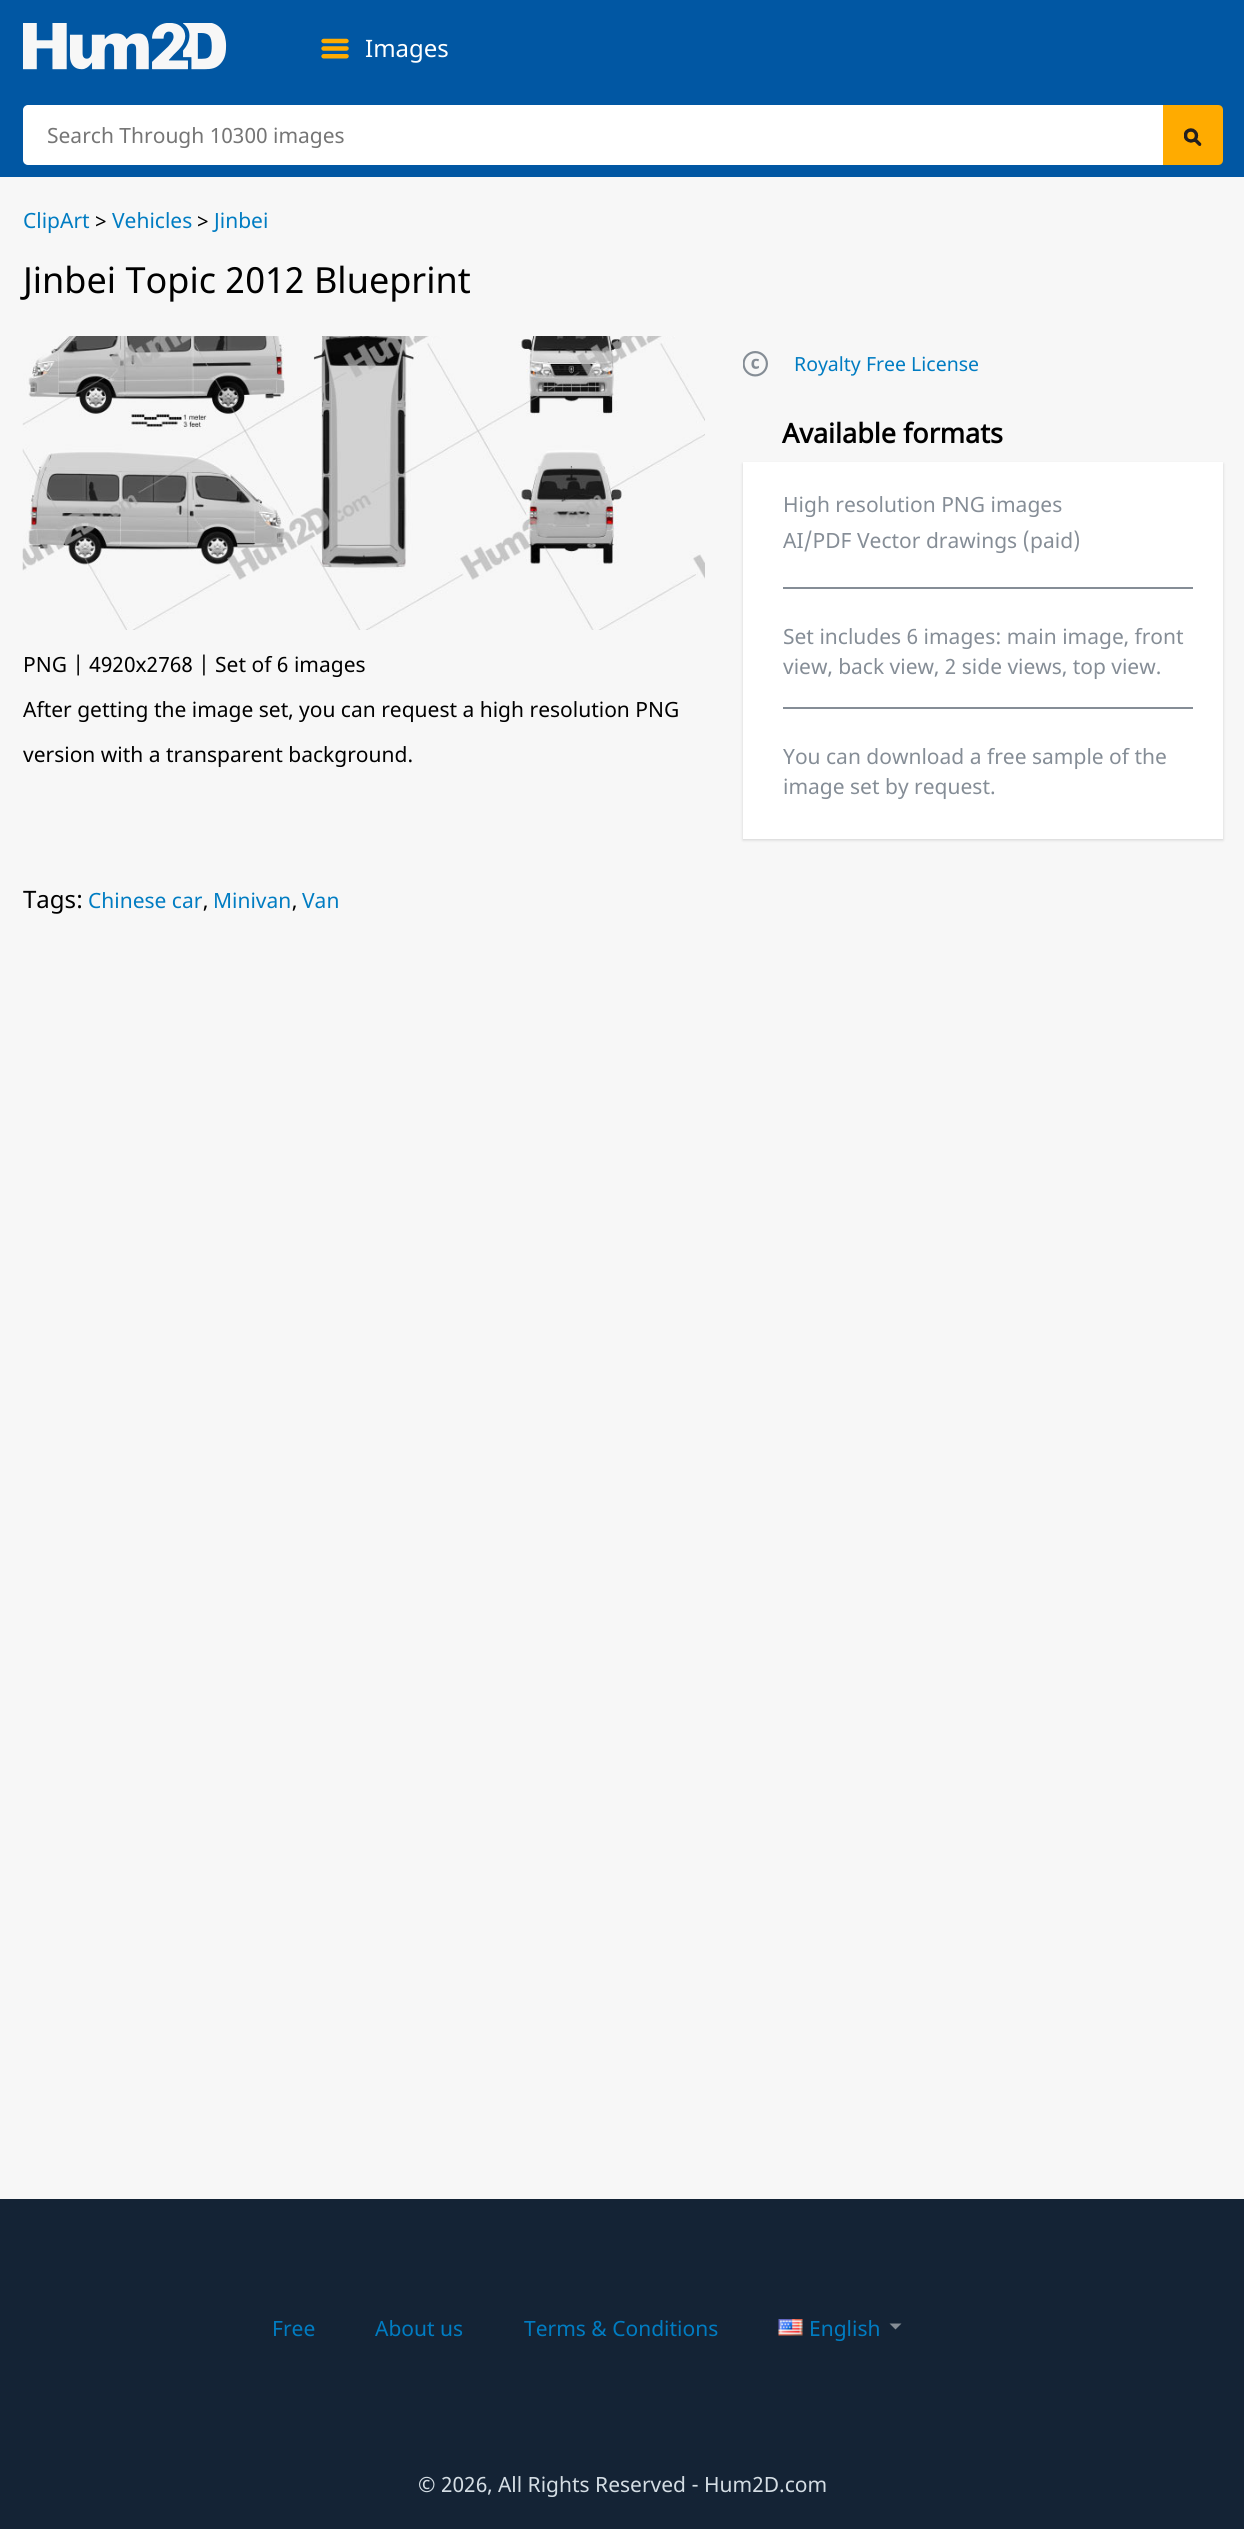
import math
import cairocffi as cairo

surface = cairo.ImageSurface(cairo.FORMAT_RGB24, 1244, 2529)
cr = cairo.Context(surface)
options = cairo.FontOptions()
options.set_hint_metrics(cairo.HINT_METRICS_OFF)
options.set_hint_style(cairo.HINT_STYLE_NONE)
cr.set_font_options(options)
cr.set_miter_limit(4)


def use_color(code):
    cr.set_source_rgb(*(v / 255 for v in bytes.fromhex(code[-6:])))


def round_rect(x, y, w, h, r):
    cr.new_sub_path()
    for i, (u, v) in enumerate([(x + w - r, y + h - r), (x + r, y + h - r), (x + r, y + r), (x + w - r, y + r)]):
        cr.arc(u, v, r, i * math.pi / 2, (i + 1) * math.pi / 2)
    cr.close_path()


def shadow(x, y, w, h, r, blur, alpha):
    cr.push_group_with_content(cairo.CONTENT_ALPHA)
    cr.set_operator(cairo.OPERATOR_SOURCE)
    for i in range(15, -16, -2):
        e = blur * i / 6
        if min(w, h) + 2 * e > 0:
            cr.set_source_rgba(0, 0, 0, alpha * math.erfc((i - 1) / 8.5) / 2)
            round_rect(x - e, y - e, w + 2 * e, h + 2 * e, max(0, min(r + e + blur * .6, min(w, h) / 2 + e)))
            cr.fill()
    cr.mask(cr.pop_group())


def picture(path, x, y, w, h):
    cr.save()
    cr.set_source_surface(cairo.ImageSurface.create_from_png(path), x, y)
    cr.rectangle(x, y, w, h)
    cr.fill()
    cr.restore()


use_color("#f7f7f7")
cr.paint()
use_color("#0157a3")
cr.rectangle(0, 0, 1244, 177)
cr.fill()
picture("img1.png", 23, 23, 204, 47)
picture("img2.png", 321, 38, 28, 21)
cr.select_font_face("Noto Sans")
cr.set_font_size(24)
use_color("#ffffff")
cr.move_to(365, 57)
cr.show_text("Images")
round_rect(24, 106, 1193, 58, 4)
cr.fill_preserve()
cr.stroke()
cr.set_font_size(21)
use_color("#757575")
cr.move_to(47, 143)
cr.show_text("Search Through 10300 images")
use_color("#ffab00")
cr.new_path()
cr.move_to(1163, 105)
cr.line_to(1218, 105)
cr.curve_to(1221, 105, 1223, 107, 1223, 110)
cr.line_to(1223, 160)
cr.curve_to(1223, 163, 1221, 165, 1218, 165)
cr.line_to(1163, 165)
cr.close_path()
cr.fill()
picture("img3.png", 1184, 128, 18, 18)
use_color("#007cc2")
cr.move_to(23, 228)
cr.show_text("ClipArt")
use_color("#000000")
cr.move_to(95, 228)
cr.show_text(">")
use_color("#007cc2")
cr.move_to(112, 228)
cr.show_text("Vehicles")
use_color("#000000")
cr.move_to(197, 228)
cr.show_text(">")
use_color("#007cc2")
cr.move_to(214, 228)
cr.show_text("Jinbei")
cr.set_font_size(36)
use_color("#000000")
cr.move_to(23, 293)
cr.show_text("Jinbei Topic 2012 Blueprint")
picture("img4.png", 22, 336, 683, 294)
cr.set_font_size(21)
cr.move_to(23, 672)
cr.show_text("PNG | 4920x2768 | Set of 6 images")
cr.move_to(23, 717)
cr.show_text("After getting the image set, you can request a high resolution PNG")
cr.move_to(23, 762)
cr.show_text("version with a transparent background.")
picture("img5.png", 743, 351, 25, 26)
cr.set_font_size(19.5)
use_color("#007cc2")
cr.move_to(794, 371)
cr.show_text("Royalty Free License")
cr.select_font_face("Noto Sans", cairo.FONT_SLANT_NORMAL, cairo.FONT_WEIGHT_BOLD)
cr.set_font_size(27)
use_color("#000000")
cr.move_to(782, 443)
cr.show_text("Available formats")
use_color("#000000")
shadow(743, 464, 480, 376, 0, 1.5, 0.15)
use_color("#ffffff")
cr.rectangle(743, 462, 480, 377)
cr.fill()
cr.select_font_face("Noto Sans")
cr.set_font_size(21)
use_color("#858d96")
cr.move_to(783, 512)
cr.show_text("High resolution PNG images")
cr.move_to(783, 548)
cr.show_text("AI/PDF Vector drawings (paid)")
cr.rectangle(783, 587, 410, 2)
cr.fill()
cr.move_to(783, 644)
cr.show_text("Set includes 6 images: main image, front")
cr.move_to(783, 674)
cr.show_text("view, back view, 2 side views, top view.")
cr.rectangle(783, 707, 410, 2)
cr.fill()
cr.move_to(783, 764)
cr.show_text("You can download a free sample of the")
cr.move_to(783, 794)
cr.show_text("image set by request.")
cr.set_font_size(24)
use_color("#000000")
cr.move_to(23, 908)
cr.show_text("Tags:")
cr.set_font_size(21)
use_color("#007cc2")
cr.move_to(88, 908)
cr.show_text("Chinese car")
use_color("#000000")
cr.move_to(203, 908)
cr.show_text(",")
use_color("#007cc2")
cr.move_to(213, 908)
cr.show_text("Minivan")
use_color("#000000")
cr.move_to(292, 908)
cr.show_text(",")
use_color("#007cc2")
cr.move_to(302, 908)
cr.show_text("Van")
use_color("#142335")
cr.rectangle(0, 2199, 1244, 330)
cr.fill()
use_color("#007cc2")
cr.move_to(272, 2336)
cr.show_text("Free")
cr.move_to(375, 2336)
cr.show_text("About us")
cr.move_to(524, 2336)
cr.show_text("Terms & Conditions")
picture("img6.png", 778, 2319, 25, 17)
cr.move_to(809, 2336)
cr.show_text("English")
use_color("#858d96")
cr.new_path()
cr.move_to(889.5, 2323.5)
cr.line_to(901.5, 2323.5)
cr.line_to(895.5, 2329.5)
cr.close_path()
cr.fill()
use_color("#d4dde4")
cr.move_to(418, 2492)
cr.show_text("© 2026, All Rights Reserved - Hum2D.com")
surface.write_to_png("result.png")
